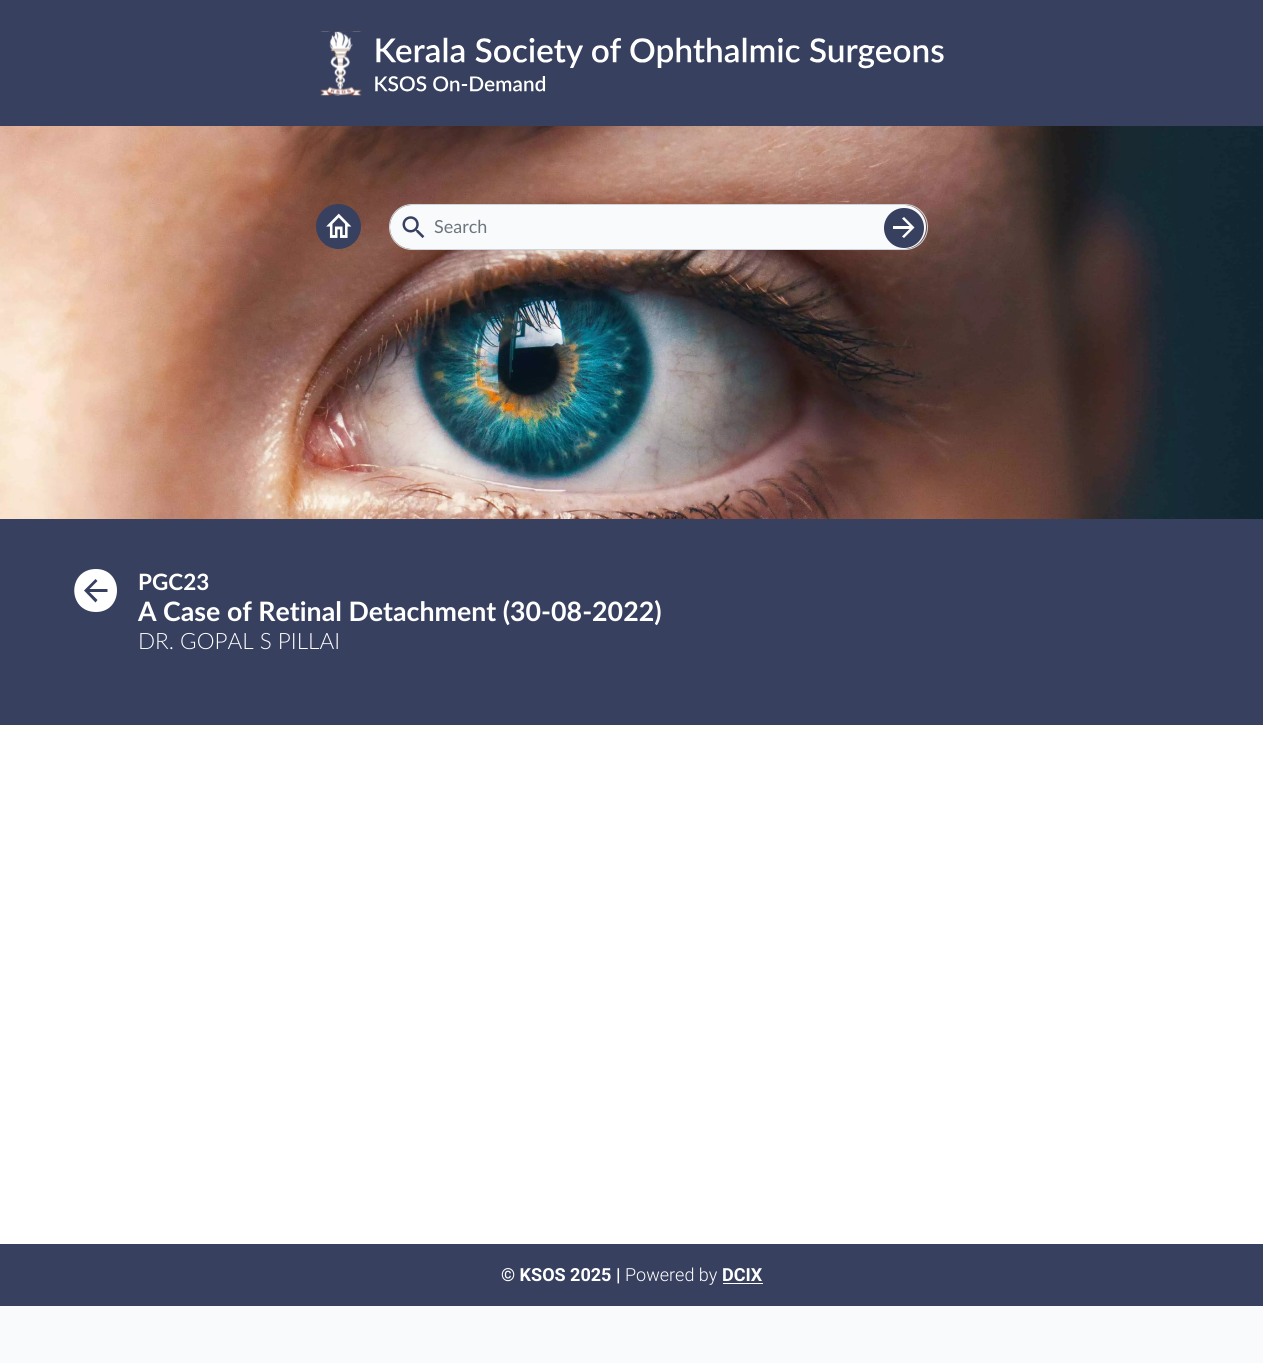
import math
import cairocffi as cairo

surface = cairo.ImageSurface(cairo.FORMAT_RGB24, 1263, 1363)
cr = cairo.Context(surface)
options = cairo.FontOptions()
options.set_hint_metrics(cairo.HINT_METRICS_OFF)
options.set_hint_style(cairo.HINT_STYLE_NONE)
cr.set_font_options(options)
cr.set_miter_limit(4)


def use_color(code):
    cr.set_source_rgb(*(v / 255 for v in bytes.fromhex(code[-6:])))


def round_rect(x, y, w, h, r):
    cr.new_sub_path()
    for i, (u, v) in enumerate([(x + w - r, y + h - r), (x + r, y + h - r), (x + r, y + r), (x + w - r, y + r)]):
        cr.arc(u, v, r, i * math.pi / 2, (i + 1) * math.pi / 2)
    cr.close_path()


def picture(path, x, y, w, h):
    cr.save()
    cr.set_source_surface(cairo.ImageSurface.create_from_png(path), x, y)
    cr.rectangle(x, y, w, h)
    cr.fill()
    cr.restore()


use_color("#f8fafc")
cr.paint()
picture("img1.png", 0, 126, 1263, 393)
use_color("#38405f")
cr.rectangle(0, 0, 1263, 126)
cr.fill()
picture("img2.png", 320, 31, 624, 65)
picture("img3.png", 316, 204, 45, 45)
use_color("#f8fafc")
round_rect(390, 205, 536, 44, 22)
cr.fill()
round_rect(389.5, 204.5, 538, 45, 22.5)
use_color("#ced4da")
cr.set_line_width(1)
cr.stroke()
picture("img4.png", 402, 216, 23, 22)
cr.select_font_face("Lato")
cr.set_font_size(18)
use_color("#6c757d")
cr.move_to(434, 233)
cr.show_text("Search")
use_color("#38405f")
cr.new_path()
cr.arc(904, 228, 20, 0, 2 * math.pi)
cr.fill()
use_color("#ffffff")
cr.new_path()
cr.move_to(904, 217)
cr.line_to(902, 218.5)
cr.line_to(909.5, 226)
cr.line_to(893, 226)
cr.line_to(893, 229)
cr.line_to(909.5, 229)
cr.line_to(902, 236.5)
cr.line_to(904, 238)
cr.line_to(914.5, 227.5)
cr.close_path()
cr.fill()
use_color("#38405f")
cr.rectangle(0, 519, 1263, 206)
cr.fill()
use_color("#ffffff")
cr.new_path()
cr.move_to(96, 612)
cr.curve_to(67, 612, 67, 569, 96, 569)
cr.curve_to(124, 569, 124, 612, 96, 612)
cr.close_path()
cr.fill()
use_color("#38405f")
cr.new_path()
cr.move_to(95.5, 602.5)
cr.line_to(97.5, 600)
cr.line_to(89.5, 592)
cr.line_to(107.5, 592)
cr.line_to(107.5, 589)
cr.line_to(89.5, 589)
cr.line_to(97.5, 581)
cr.line_to(95.5, 579)
cr.line_to(84, 590.5)
cr.close_path()
cr.fill()
cr.select_font_face("Lato", cairo.FONT_SLANT_NORMAL, cairo.FONT_WEIGHT_BOLD)
cr.set_font_size(22.5)
use_color("#ffffff")
cr.move_to(138, 590)
cr.show_text("PGC23")
cr.set_font_size(26.75)
cr.move_to(138, 621)
cr.show_text("A Case of Retinal Detachment (30-08-2022)")
cr.select_font_face("Lato Light")
cr.set_font_size(22.5)
cr.move_to(138, 649)
cr.show_text("DR. GOPAL S PILLAI")
cr.rectangle(0, 725, 1263, 519)
cr.fill()
use_color("#38405f")
cr.rectangle(0, 1244, 1263, 62)
cr.fill()
cr.select_font_face("Roboto", cairo.FONT_SLANT_NORMAL, cairo.FONT_WEIGHT_BOLD)
cr.set_font_size(18)
use_color("#ffffff")
cr.move_to(501, 1281)
cr.show_text("© KSOS 2025 |")
cr.select_font_face("Roboto Light")
cr.move_to(625, 1281)
cr.show_text("Powered by")
cr.select_font_face("Roboto", cairo.FONT_SLANT_NORMAL, cairo.FONT_WEIGHT_BOLD)
cr.move_to(722, 1281)
cr.show_text("DCIX")
cr.rectangle(723, 1283, 40, 1)
cr.fill()
surface.write_to_png("result.png")
